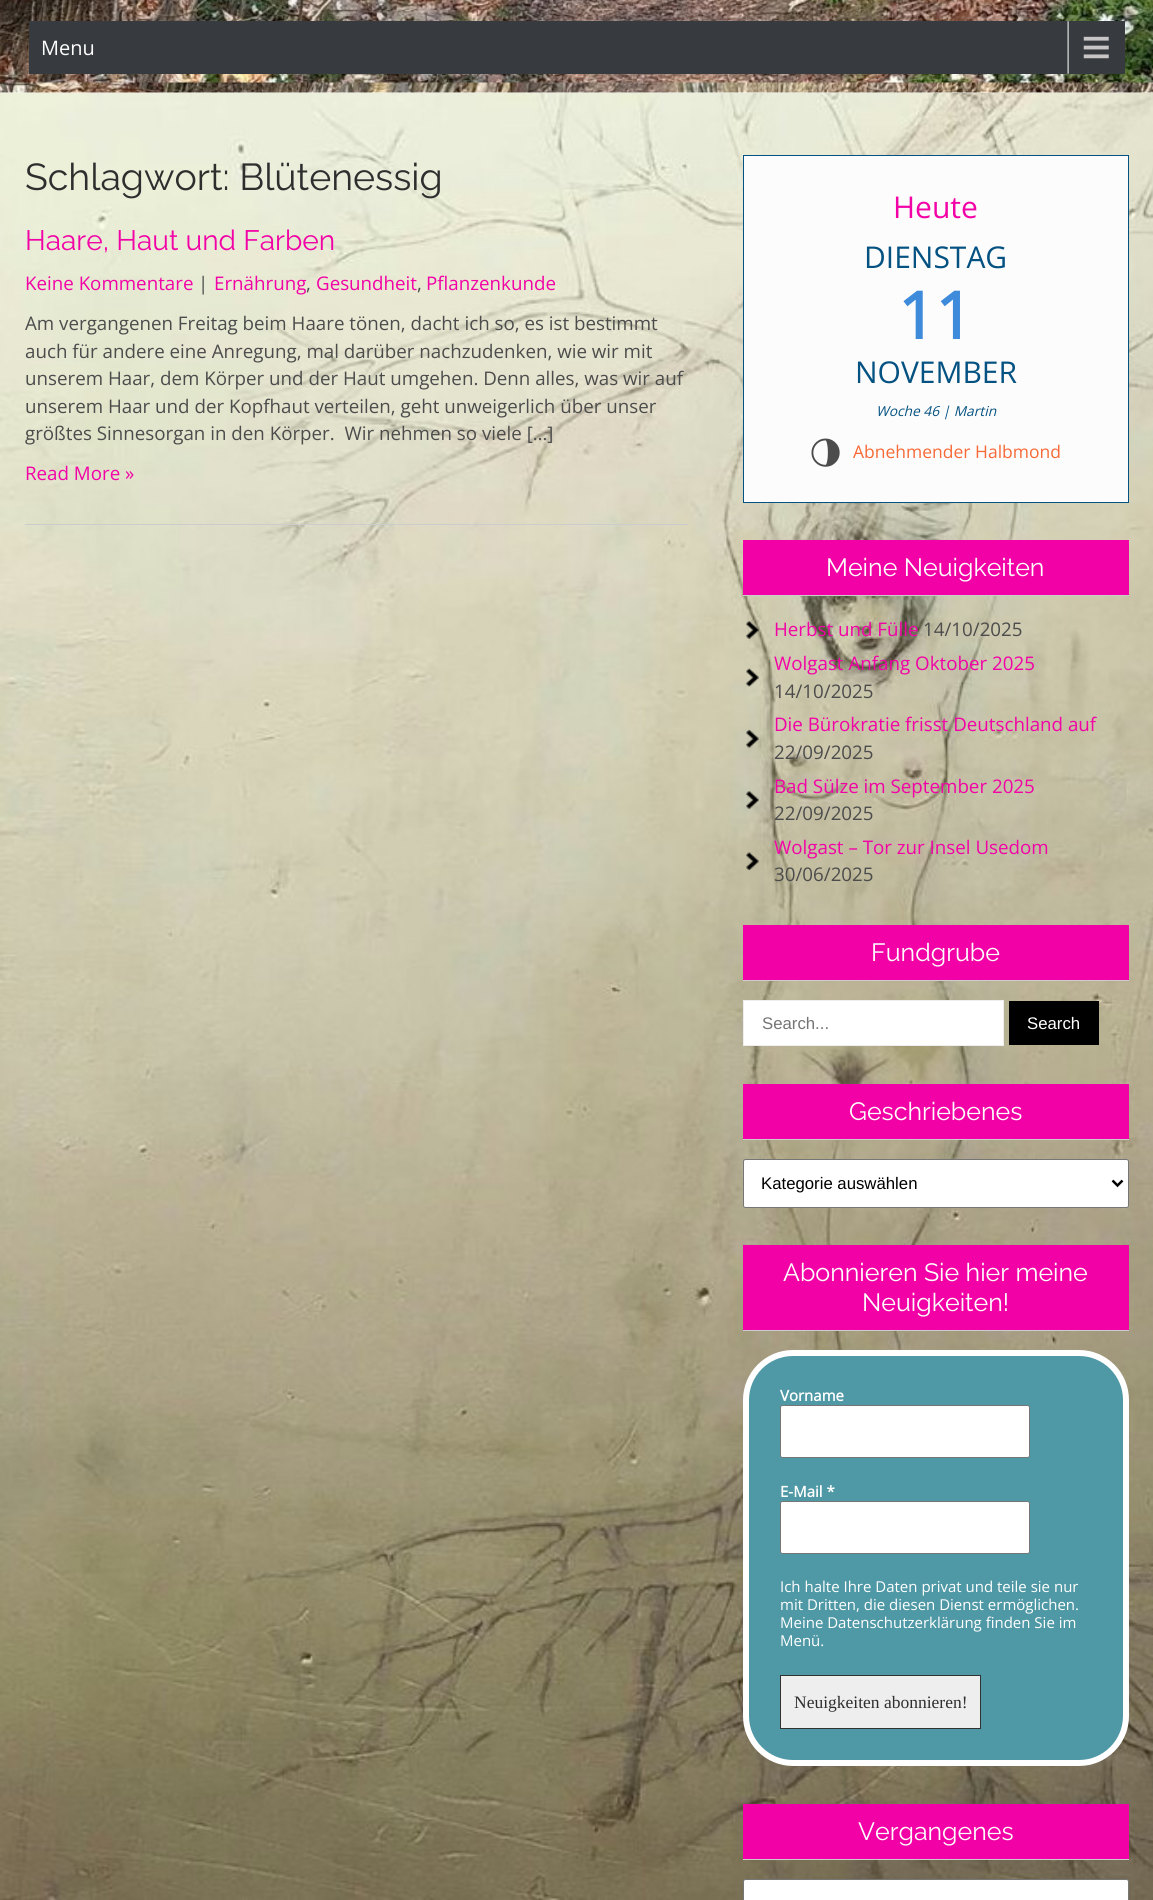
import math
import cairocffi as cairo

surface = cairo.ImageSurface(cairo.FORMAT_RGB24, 1153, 1900)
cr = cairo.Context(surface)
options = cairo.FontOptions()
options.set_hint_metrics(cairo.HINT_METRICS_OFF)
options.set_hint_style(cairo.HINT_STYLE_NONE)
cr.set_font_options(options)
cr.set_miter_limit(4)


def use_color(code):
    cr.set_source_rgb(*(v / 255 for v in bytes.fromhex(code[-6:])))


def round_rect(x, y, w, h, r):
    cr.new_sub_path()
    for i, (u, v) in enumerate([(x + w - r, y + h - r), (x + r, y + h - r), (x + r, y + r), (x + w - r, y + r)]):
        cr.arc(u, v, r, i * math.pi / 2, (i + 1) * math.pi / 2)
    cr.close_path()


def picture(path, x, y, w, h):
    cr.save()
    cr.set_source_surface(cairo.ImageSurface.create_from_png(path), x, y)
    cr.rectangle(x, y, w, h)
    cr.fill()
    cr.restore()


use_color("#ffffff")
cr.paint()
picture("img1.png", 0, 93, 1153, 1807)
picture("img2.png", 0, 0, 1153, 93)
use_color("#373a3f")
cr.rectangle(29, 21, 1096, 53)
cr.fill()
picture("img3.png", 1067, 21, 42, 53)
cr.select_font_face("Open Sans")
cr.set_font_size(20)
use_color("#ffffff")
cr.move_to(41, 55)
cr.show_text("Menu")
cr.select_font_face("Raleway")
cr.set_font_size(37.5)
use_color("#2e2e2e")
cr.move_to(25, 190)
cr.show_text("Schlagwort: Blütenessig")
use_color("#cccccc")
cr.rectangle(25, 524, 663, 1)
cr.fill()
cr.set_font_size(28.1)
use_color("#f202a6")
cr.move_to(25, 250)
cr.show_text("Haare, Haut und Farben")
cr.select_font_face("Open Sans")
cr.set_font_size(18.75)
cr.move_to(25, 290)
cr.show_text("Keine Kommentare")
use_color("#4c4c4c")
cr.move_to(198, 290)
cr.show_text("|")
use_color("#f202a6")
cr.move_to(214, 290)
cr.show_text("Ernährung")
use_color("#4c4c4c")
cr.move_to(306, 290)
cr.show_text(",")
use_color("#f202a6")
cr.move_to(316, 290)
cr.show_text("Gesundheit")
use_color("#4c4c4c")
cr.move_to(417, 290)
cr.show_text(",")
use_color("#f202a6")
cr.move_to(426, 290)
cr.show_text("Pflanzenkunde")
use_color("#4c4c4c")
cr.move_to(25, 330)
cr.show_text("Am vergangenen Freitag beim Haare tönen, dacht ich so, es ist bestimmt")
cr.move_to(25, 358)
cr.show_text("auch für andere eine Anregung, mal darüber nachzudenken, wie wir mit")
cr.move_to(25, 385)
cr.show_text("unserem Haar, dem Körper und der Haut umgehen. Denn alles, was wir auf")
cr.move_to(25, 413)
cr.show_text("unserem Haar und der Kopfhaut verteilen, geht unweigerlich über unser")
cr.move_to(25, 440)
cr.show_text("größtes Sinnesorgan in den Körper.  Wir nehmen so viele […]")
use_color("#f202a6")
cr.move_to(25, 480)
cr.show_text("Read More »")
use_color("#fdfcfc")
cr.rectangle(743.5, 155.5, 385, 347)
cr.fill_preserve()
use_color("#045282")
cr.set_line_width(1)
cr.stroke()
cr.set_font_size(30)
use_color("#f202a6")
cr.move_to(893, 218)
cr.show_text("Heute")
use_color("#045282")
cr.move_to(864, 268)
cr.show_text("DIENSTAG")
cr.select_font_face("Open Sans", cairo.FONT_SLANT_NORMAL, cairo.FONT_WEIGHT_BOLD)
cr.set_font_size(65)
use_color("#3e8adb")
cr.move_to(898, 339)
cr.show_text("11")
cr.select_font_face("Open Sans")
cr.set_font_size(30)
use_color("#045282")
cr.move_to(855, 383)
cr.show_text("NOVEMBER")
cr.select_font_face("Open Sans", cairo.FONT_SLANT_ITALIC)
cr.set_font_size(13.75)
cr.move_to(876, 416)
cr.show_text("Woche 46 | Martin")
cr.select_font_face("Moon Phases", cairo.FONT_SLANT_NORMAL, cairo.FONT_WEIGHT_BOLD)
cr.set_font_size(30)
use_color("#4c4c4c")
cr.move_to(810, 468)
cr.show_text("S")
cr.select_font_face("Open Sans")
cr.set_font_size(17.5)
use_color("#f76936")
cr.move_to(853, 458)
cr.show_text("Abnehmender Halbmond")
use_color("#f202a6")
cr.rectangle(743, 540, 386, 55)
cr.fill()
use_color("#cccccc")
cr.rectangle(743, 595, 386, 1)
cr.fill()
cr.select_font_face("Raleway")
cr.set_font_size(25)
use_color("#ffffff")
cr.move_to(826, 576)
cr.show_text("Meine Neuigkeiten")
picture("img4.png", 746, 621, 13, 18)
cr.select_font_face("Open Sans")
cr.set_font_size(18.75)
use_color("#f202a6")
cr.move_to(774, 636)
cr.show_text("Herbst und Fülle")
use_color("#4c4c4c")
cr.move_to(923, 636)
cr.show_text("14/10/2025")
picture("img5.png", 746, 668, 13, 19)
use_color("#f202a6")
cr.move_to(774, 670)
cr.show_text("Wolgast Anfang Oktober 2025")
use_color("#4c4c4c")
cr.move_to(774, 698)
cr.show_text("14/10/2025")
picture("img6.png", 746, 729, 13, 19)
use_color("#f202a6")
cr.move_to(774, 731)
cr.show_text("Die Bürokratie frisst Deutschland auf")
use_color("#4c4c4c")
cr.move_to(774, 759)
cr.show_text("22/09/2025")
picture("img7.png", 746, 791, 13, 18)
use_color("#f202a6")
cr.move_to(774, 793)
cr.show_text("Bad Sülze im September 2025")
use_color("#4c4c4c")
cr.move_to(774, 820)
cr.show_text("22/09/2025")
picture("img8.png", 746, 852, 13, 18)
use_color("#f202a6")
cr.move_to(774, 854)
cr.show_text("Wolgast – Tor zur Insel Usedom")
use_color("#4c4c4c")
cr.move_to(774, 881)
cr.show_text("30/06/2025")
use_color("#f202a6")
cr.rectangle(743, 925, 386, 55)
cr.fill()
use_color("#cccccc")
cr.rectangle(743, 980, 386, 1)
cr.fill()
cr.select_font_face("Raleway")
cr.set_font_size(25)
use_color("#ffffff")
cr.move_to(871, 961)
cr.show_text("Fundgrube")
cr.rectangle(743.5, 1000.5, 260, 45)
cr.fill_preserve()
use_color("#eeeeee")
cr.stroke()
cr.select_font_face("Liberation Sans")
cr.set_font_size(16.75)
use_color("#757575")
cr.move_to(762, 1029)
cr.show_text("Search...")
use_color("#000000")
cr.rectangle(1009, 1001, 90, 44)
cr.fill()
use_color("#ffffff")
cr.move_to(1027, 1029)
cr.show_text("Search")
use_color("#f202a6")
cr.rectangle(743, 1084, 386, 55)
cr.fill()
use_color("#cccccc")
cr.rectangle(743, 1139, 386, 1)
cr.fill()
cr.select_font_face("Raleway")
cr.set_font_size(25)
use_color("#ffffff")
cr.move_to(849, 1120)
cr.show_text("Geschriebenes")
round_rect(743.5, 1159.5, 385, 48, 2)
cr.fill_preserve()
use_color("#767676")
cr.stroke()
cr.new_path()
cr.move_to(1112.5, 1180.5)
cr.line_to(1117.5, 1185.5)
cr.line_to(1122.5, 1180.5)
use_color("#000000")
cr.set_line_width(2.5)
cr.stroke()
cr.select_font_face("Liberation Sans")
cr.set_font_size(16.75)
cr.move_to(761, 1189)
cr.show_text("Kategorie auswählen")
use_color("#f202a6")
cr.rectangle(743, 1245, 386, 85)
cr.fill()
use_color("#cccccc")
cr.rectangle(743, 1330, 386, 1)
cr.fill()
cr.select_font_face("Raleway")
cr.set_font_size(25)
use_color("#ffffff")
cr.move_to(783, 1281)
cr.show_text("Abonnieren Sie hier meine")
cr.move_to(862, 1311)
cr.show_text("Neuigkeiten!")
use_color("#4f98a5")
round_rect(746, 1353, 380, 410, 47)
cr.fill_preserve()
use_color("#ffffff")
cr.set_line_width(6)
cr.stroke()
cr.select_font_face("Open Sans", cairo.FONT_SLANT_NORMAL, cairo.FONT_WEIGHT_BOLD)
cr.set_font_size(15)
cr.move_to(780, 1401)
cr.show_text("Vorname")
round_rect(780.5, 1405.5, 249, 52, 2)
cr.fill_preserve()
use_color("#767676")
cr.set_line_width(1)
cr.stroke()
use_color("#ffffff")
cr.move_to(780, 1497)
cr.show_text("E-Mail *")
round_rect(780.5, 1501.5, 249, 52, 2)
cr.fill_preserve()
use_color("#767676")
cr.stroke()
cr.select_font_face("Open Sans")
use_color("#ffffff")
cr.move_to(780, 1592)
cr.show_text("Ich halte Ihre Daten privat und teile sie nur")
cr.move_to(780, 1610)
cr.show_text("mit Dritten, die diesen Dienst ermöglichen.")
cr.move_to(780, 1628)
cr.show_text("Meine Datenschutzerklärung finden Sie im")
cr.move_to(780, 1646)
cr.show_text("Menü.")
use_color("#eeeeee")
cr.rectangle(780.5, 1675.5, 200, 53)
cr.fill_preserve()
use_color("#313131")
cr.stroke()
cr.select_font_face("Liberation Serif")
cr.set_font_size(17.5)
use_color("#2e2e2e")
cr.move_to(794, 1708)
cr.show_text("Neuigkeiten abonnieren!")
use_color("#f202a6")
cr.rectangle(743, 1804, 386, 55)
cr.fill()
use_color("#cccccc")
cr.rectangle(743, 1859, 386, 1)
cr.fill()
cr.select_font_face("Raleway")
cr.set_font_size(25)
use_color("#ffffff")
cr.move_to(858, 1840)
cr.show_text("Vergangenes")
round_rect(743.5, 1879.5, 385, 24, 2)
cr.fill_preserve()
use_color("#767676")
cr.stroke()
surface.write_to_png("result.png")
